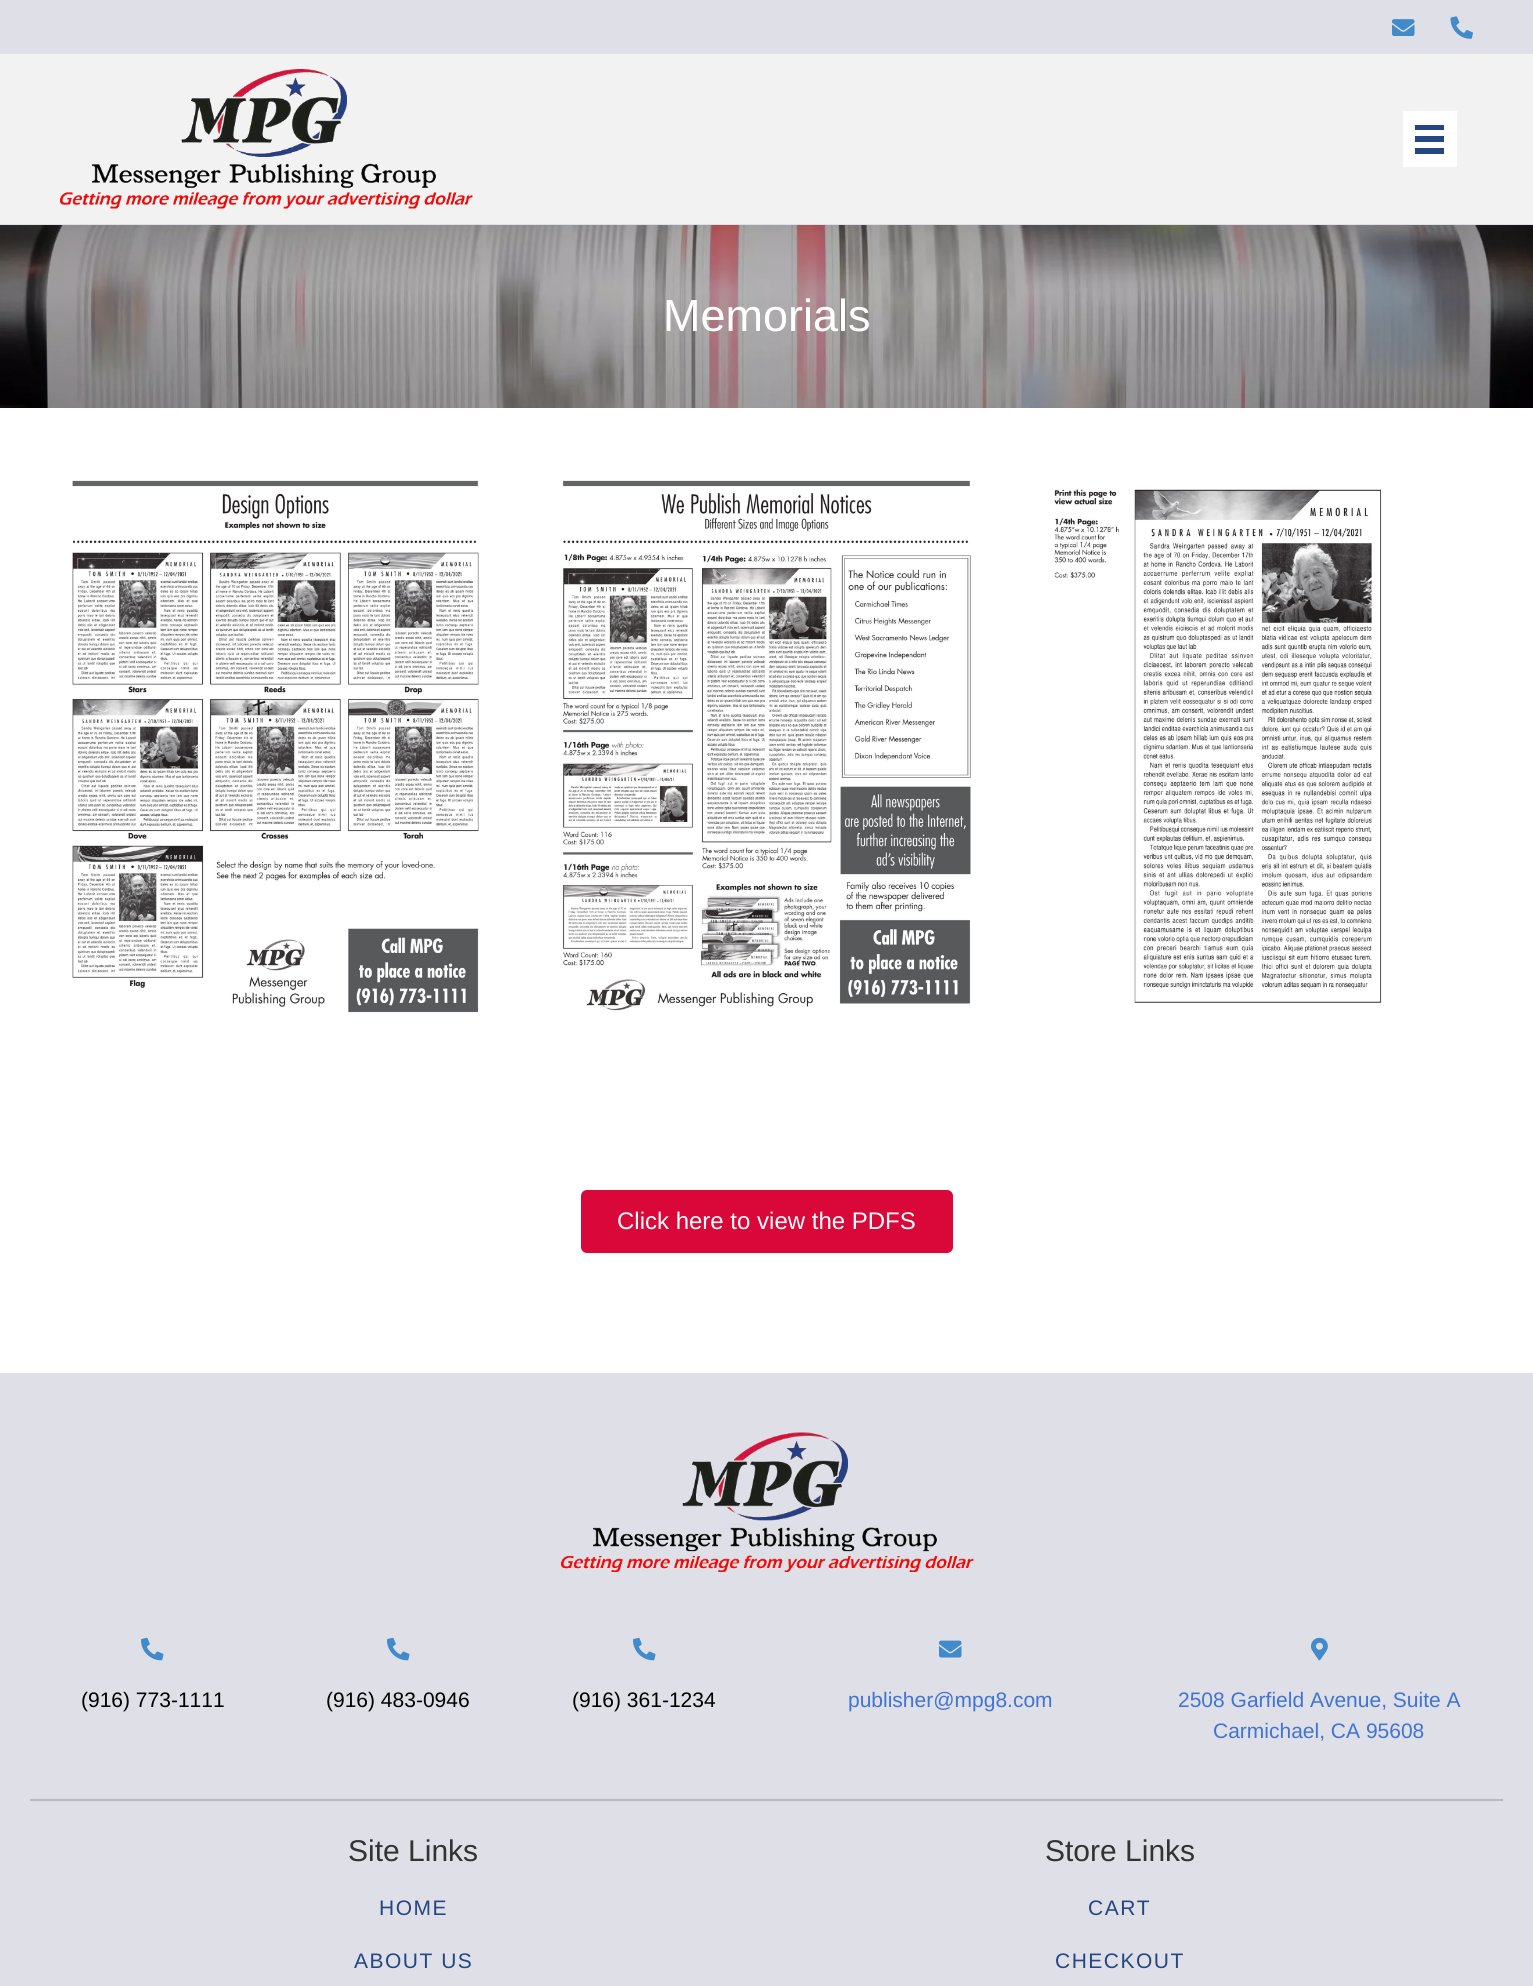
import math
import cairocffi as cairo

surface = cairo.ImageSurface(cairo.FORMAT_RGB24, 1533, 1986)
cr = cairo.Context(surface)
options = cairo.FontOptions()
options.set_hint_metrics(cairo.HINT_METRICS_OFF)
options.set_hint_style(cairo.HINT_STYLE_NONE)
cr.set_font_options(options)
cr.set_miter_limit(4)


def use_color(code):
    cr.set_source_rgb(*(v / 255 for v in bytes.fromhex(code[-6:])))


def spaced_text(x, y, s, letter, word):
    cr.move_to(x, y)
    for ch in s:
        cr.show_text(ch)
        cr.rel_move_to(letter + word * (ch == ' '), 0)


def round_rect(x, y, w, h, r):
    cr.new_sub_path()
    for i, (u, v) in enumerate([(x + w - r, y + h - r), (x + r, y + h - r), (x + r, y + r), (x + w - r, y + r)]):
        cr.arc(u, v, r, i * math.pi / 2, (i + 1) * math.pi / 2)
    cr.close_path()


def picture(path, x, y, w, h):
    cr.save()
    cr.set_source_surface(cairo.ImageSurface.create_from_png(path), x, y)
    cr.rectangle(x, y, w, h)
    cr.fill()
    cr.restore()


use_color("#f2f2f2")
cr.paint()
use_color("#dedfe7")
cr.rectangle(0, 0, 1533, 54)
cr.fill()
picture("img1.png", 1392, 19, 23, 17)
picture("img2.png", 1450, 16, 23, 23)
cr.rectangle(0, 224, 1533, 1)
cr.fill()
picture("img3.png", 60, 69, 413, 140)
use_color("#ffffff")
cr.rectangle(1403, 111, 54, 56)
cr.fill()
use_color("#244683")
cr.rectangle(1415, 125, 29, 5)
cr.fill()
cr.rectangle(1415, 136, 29, 6)
cr.fill()
cr.rectangle(1415, 148, 29, 6)
cr.fill()
use_color("#ffffff")
cr.rectangle(0, 408, 1533, 965)
cr.fill()
picture("img4.png", 0, 225, 1533, 183)
cr.select_font_face("Liberation Sans")
cr.set_font_size(45)
cr.move_to(663, 331)
cr.show_text("Memorials")
picture("img5.png", 72, 480, 407, 533)
picture("img6.png", 562, 480, 409, 531)
picture("img7.png", 1054, 489, 328, 514)
use_color("#da0839")
round_rect(581, 1190, 372, 63, 6)
cr.fill()
cr.set_font_size(24)
use_color("#ffffff")
cr.move_to(617, 1229)
cr.show_text("Click here to view the PDFS")
use_color("#dedfe7")
cr.rectangle(0, 1373, 1533, 613)
cr.fill()
use_color("#b7b9be")
cr.rectangle(30, 1799, 1473, 2)
cr.fill()
picture("img8.png", 561, 1432, 413, 140)
picture("img9.png", 141, 1637, 23, 24)
cr.set_font_size(21)
use_color("#000000")
cr.move_to(81, 1707)
cr.show_text("(916) 773-1111")
picture("img9.png", 387, 1637, 23, 24)
cr.move_to(326, 1707)
cr.show_text("(916) 483-0946")
picture("img9.png", 633, 1637, 23, 24)
cr.move_to(572, 1707)
cr.show_text("(916) 361-1234")
picture("img10.png", 939, 1640, 23, 18)
use_color("#4174d2")
cr.move_to(848, 1707)
cr.show_text("publisher@mpg8.com")
picture("img11.png", 1311, 1637, 17, 24)
cr.move_to(1178, 1707)
cr.show_text("2508 Garfield Avenue, Suite A")
cr.move_to(1213, 1738)
cr.show_text("Carmichael, CA 95608")
cr.set_font_size(30)
use_color("#333333")
cr.move_to(348, 1861)
cr.show_text("Site Links")
cr.set_font_size(21)
use_color("#244683")
spaced_text(379, 1915, "HOME", 1.5, 0)
spaced_text(354, 1968, "ABOUT US", 1.5, 0)
cr.set_font_size(30)
use_color("#333333")
cr.move_to(1045, 1861)
cr.show_text("Store Links")
cr.set_font_size(21)
use_color("#244683")
spaced_text(1088, 1915, "CART", 1.5, 0)
spaced_text(1055, 1968, "CHECKOUT", 1.5, 0)
surface.write_to_png("result.png")
